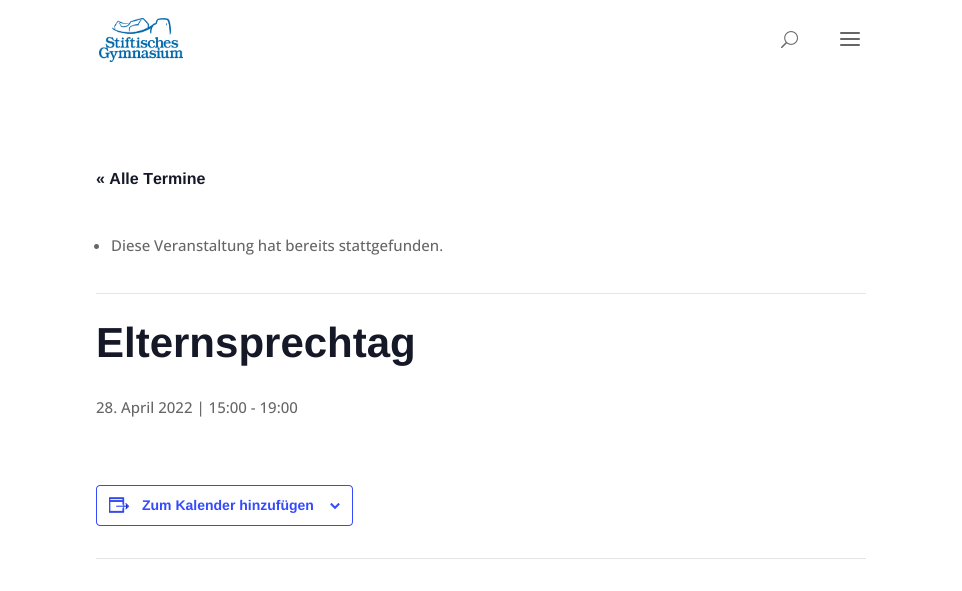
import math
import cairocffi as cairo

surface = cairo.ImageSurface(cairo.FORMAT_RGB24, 962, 591)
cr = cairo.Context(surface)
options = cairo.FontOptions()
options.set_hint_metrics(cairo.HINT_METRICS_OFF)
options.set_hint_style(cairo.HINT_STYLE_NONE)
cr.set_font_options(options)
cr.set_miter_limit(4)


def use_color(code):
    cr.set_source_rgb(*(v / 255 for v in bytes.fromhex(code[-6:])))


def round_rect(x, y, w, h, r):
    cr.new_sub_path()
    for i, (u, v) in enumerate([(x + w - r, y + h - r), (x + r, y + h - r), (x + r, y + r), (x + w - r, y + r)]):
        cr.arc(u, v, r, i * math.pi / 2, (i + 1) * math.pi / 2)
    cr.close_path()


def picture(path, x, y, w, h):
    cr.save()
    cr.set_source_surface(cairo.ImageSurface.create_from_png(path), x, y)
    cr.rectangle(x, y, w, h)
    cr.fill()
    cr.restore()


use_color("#ffffff")
cr.paint()
picture("img1.png", 99, 18, 84, 44)
picture("img2.png", 781, 31, 17, 18)
picture("img3.png", 840, 32, 20, 14)
cr.select_font_face("Liberation Sans", cairo.FONT_SLANT_NORMAL, cairo.FONT_WEIGHT_BOLD)
cr.set_font_size(16)
use_color("#141827")
cr.move_to(96, 184)
cr.show_text("« Alle Termine")
use_color("#e4e4e4")
cr.rectangle(96, 293, 770, 1)
cr.fill()
use_color("#666666")
cr.arc(96.5, 246.5, 2.5, 0, 2 * math.pi)
cr.fill()
cr.select_font_face("Open Sans Medium")
cr.set_font_size(15)
cr.move_to(111, 251)
cr.show_text("Diese Veranstaltung hat bereits stattgefunden.")
cr.select_font_face("Liberation Sans", cairo.FONT_SLANT_NORMAL, cairo.FONT_WEIGHT_BOLD)
cr.set_font_size(42)
use_color("#141827")
cr.move_to(96, 357)
cr.show_text("Elternsprechtag")
cr.select_font_face("Open Sans Medium")
cr.set_font_size(15)
use_color("#666666")
cr.move_to(96, 413)
cr.show_text("28. April 2022 | 15:00 - 19:00")
round_rect(96.5, 485.5, 256, 40, 3.5)
use_color("#334aff")
cr.set_line_width(1)
cr.stroke()
picture("img4.png", 109, 497, 21, 16)
cr.select_font_face("Liberation Sans", cairo.FONT_SLANT_NORMAL, cairo.FONT_WEIGHT_BOLD)
cr.set_font_size(14)
cr.move_to(142, 510)
cr.show_text("Zum Kalender hinzufügen")
picture("img5.png", 330, 503, 10, 6)
use_color("#e4e4e4")
cr.rectangle(96, 558, 770, 1)
cr.fill()
surface.write_to_png("result.png")
